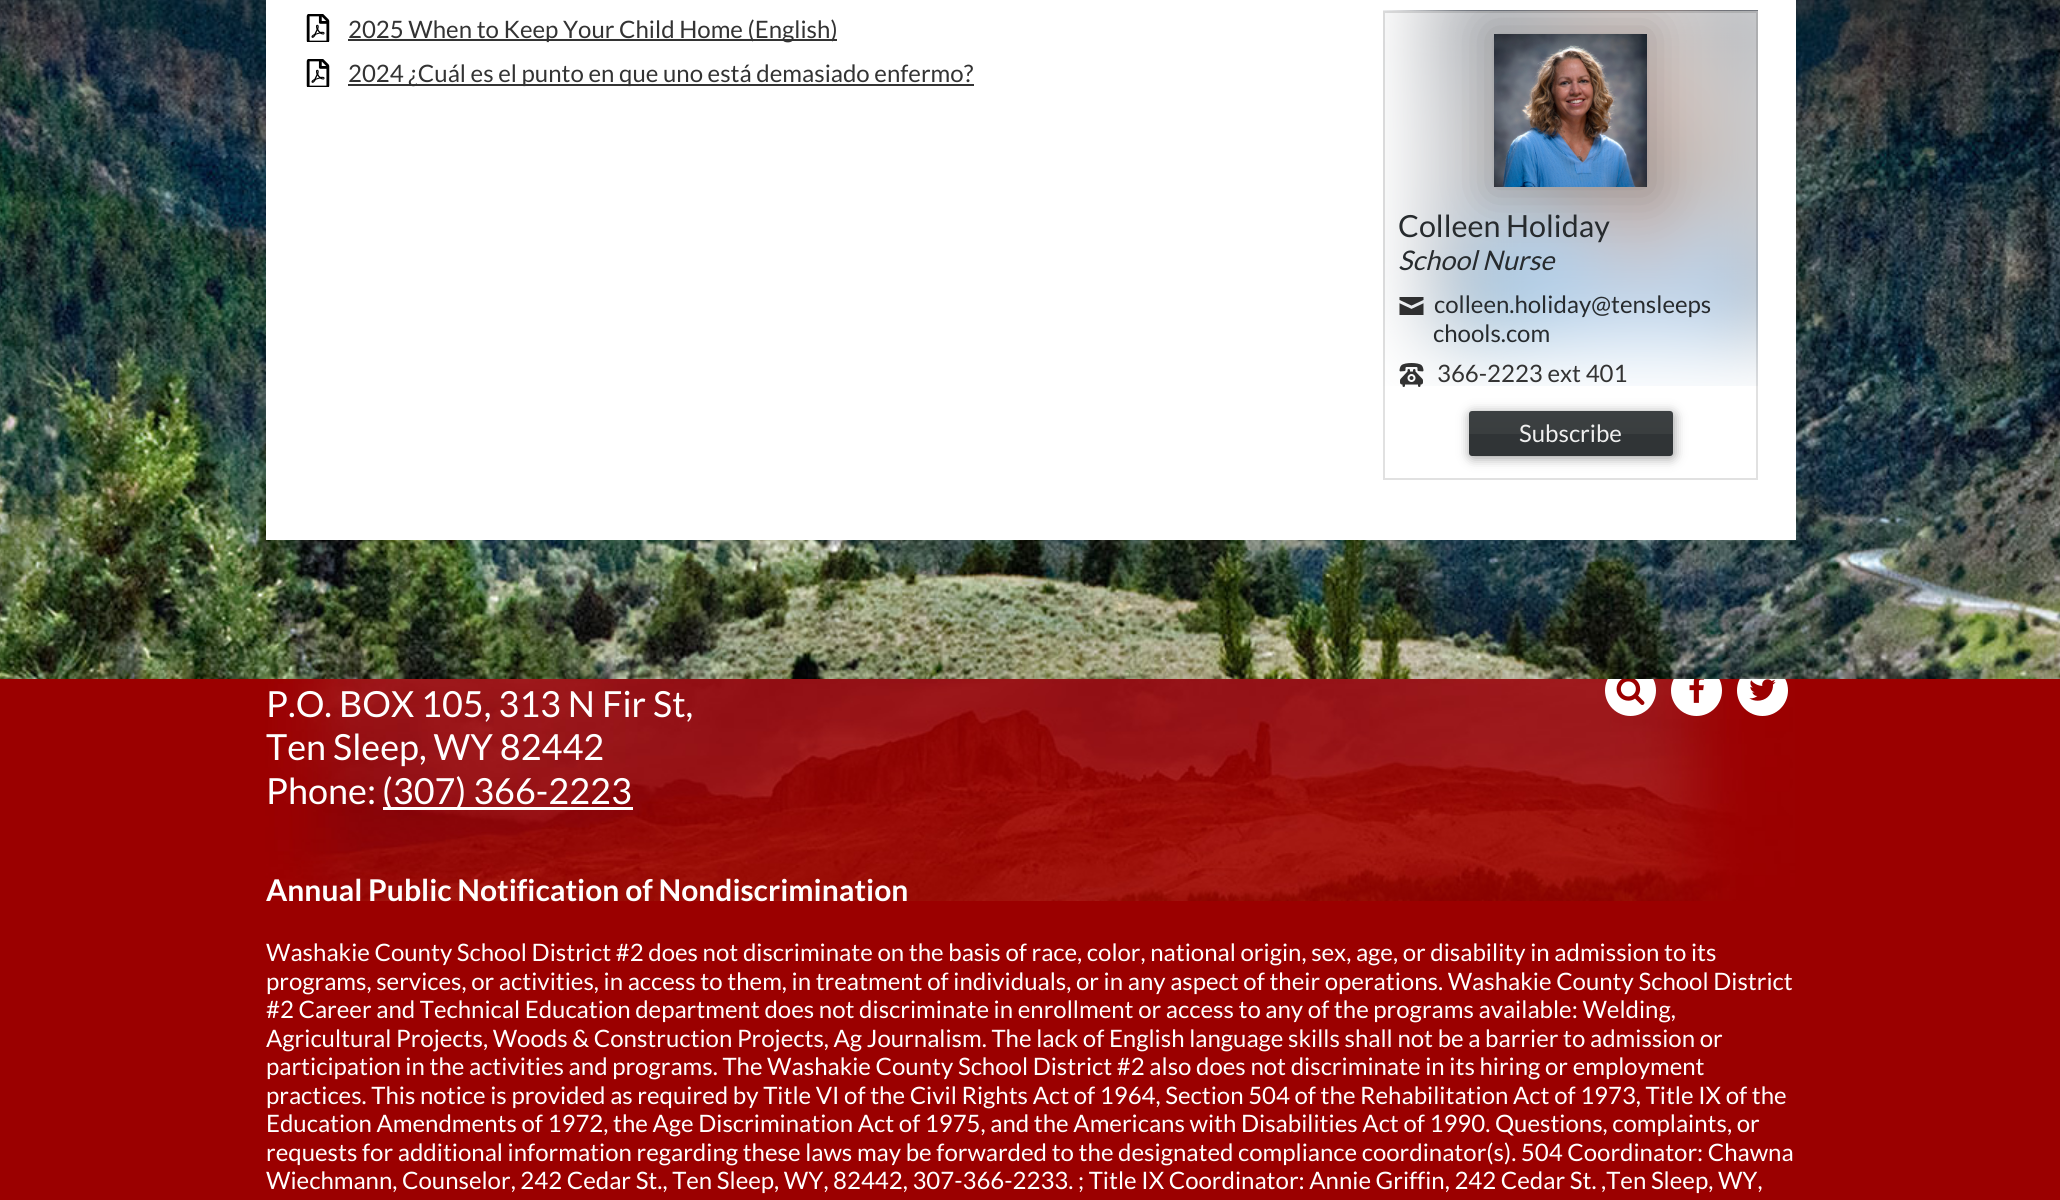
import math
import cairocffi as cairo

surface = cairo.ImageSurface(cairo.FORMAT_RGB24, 2060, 1200)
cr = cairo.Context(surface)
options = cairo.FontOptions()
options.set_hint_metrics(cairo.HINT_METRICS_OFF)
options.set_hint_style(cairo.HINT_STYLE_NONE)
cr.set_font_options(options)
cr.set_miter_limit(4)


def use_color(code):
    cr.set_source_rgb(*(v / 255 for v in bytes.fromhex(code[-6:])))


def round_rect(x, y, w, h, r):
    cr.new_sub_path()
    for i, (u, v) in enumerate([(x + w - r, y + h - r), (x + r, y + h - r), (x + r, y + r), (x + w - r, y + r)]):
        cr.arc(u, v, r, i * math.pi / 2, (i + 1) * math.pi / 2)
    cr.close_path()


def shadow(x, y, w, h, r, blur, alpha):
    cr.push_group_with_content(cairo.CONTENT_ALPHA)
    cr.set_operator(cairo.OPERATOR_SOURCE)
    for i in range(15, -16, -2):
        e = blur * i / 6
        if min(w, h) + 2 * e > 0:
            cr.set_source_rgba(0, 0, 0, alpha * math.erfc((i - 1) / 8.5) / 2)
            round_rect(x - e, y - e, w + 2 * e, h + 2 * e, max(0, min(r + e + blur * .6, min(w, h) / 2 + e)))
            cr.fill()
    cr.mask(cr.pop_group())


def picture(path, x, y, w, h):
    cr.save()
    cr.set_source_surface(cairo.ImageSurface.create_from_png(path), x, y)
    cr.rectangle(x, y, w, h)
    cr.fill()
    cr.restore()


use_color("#9b0000")
cr.paint()
picture("img7.png", 265, 679, 1531, 222)
use_color("#ffffff")
cr.arc(1630.5, 690.5, 25.5, 0, 2 * math.pi)
cr.fill()
cr.arc(1696.5, 690.5, 25.5, 0, 2 * math.pi)
cr.fill()
cr.arc(1762.5, 690.5, 25.5, 0, 2 * math.pi)
cr.fill()
picture("img1.png", 0, 0, 2060, 679)
cr.rectangle(266, 0, 1530, 540)
cr.fill()
picture("img2.png", 306, 14, 24, 28)
use_color("#333333")
cr.rectangle(348, 39, 489, 2)
cr.fill()
cr.select_font_face("Lato")
cr.set_font_size(24)
cr.move_to(348, 38)
cr.show_text("2025 When to Keep Your Child Home (English)")
picture("img2.png", 306, 59, 24, 28)
cr.rectangle(348, 84, 626, 2)
cr.fill()
cr.move_to(348, 82)
cr.show_text("2024 ¿Cuál es el punto en que uno está demasiado enfermo?")
picture("img4.png", 1383, 10, 375, 376)
cr.set_source_rgba(1, 1, 1, 0.6)
cr.rectangle(1383, 11, 375, 375)
cr.fill()
cr.rectangle(1384, 12, 373, 467)
cr.set_source_rgba(0, 0, 0, 0.12)
cr.stroke()
cr.save()
cr.rectangle(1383, 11, 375, 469)
cr.clip()
use_color("#000000")
shadow(1488, 29, 165, 165, 0, 22.5, 0.2)
cr.restore()
picture("img3.png", 1494, 34, 153, 153)
cr.set_font_size(30.5)
use_color("#272b2e")
cr.move_to(1398, 237)
cr.show_text("Colleen")
cr.move_to(1506, 237)
cr.show_text("Holiday")
cr.select_font_face("Lato", cairo.FONT_SLANT_ITALIC)
cr.set_font_size(27)
cr.move_to(1398, 270)
cr.show_text("School Nurse")
picture("img5.png", 1399, 297, 25, 18)
cr.select_font_face("Lato")
cr.set_font_size(24)
cr.move_to(1434, 313)
cr.show_text("colleen.holiday@tensleeps")
cr.move_to(1433, 342)
cr.show_text("chools.com")
picture("img6.png", 1399, 363, 25, 24)
use_color("#333333")
cr.move_to(1437, 382)
cr.show_text("366-2223 ext 401")
use_color("#000000")
shadow(1470, 413, 204, 45, 3, 6, 0.4)
gradient = cairo.LinearGradient(1571, 411, 1571, 456)
gradient.add_color_stop_rgba(0, 0.235, 0.251, 0.259, 1)
gradient.add_color_stop_rgba(0.5, 0.227, 0.243, 0.247, 1)
gradient.add_color_stop_rgba(0.51, 0.188, 0.204, 0.212, 1)
gradient.add_color_stop_rgba(1, 0.188, 0.204, 0.212, 1)
cr.set_source(gradient)
round_rect(1469, 411, 204, 45, 3)
cr.fill()
use_color("#efefef")
cr.move_to(1519, 442)
cr.show_text("Subscribe")
cr.set_font_size(36)
use_color("#ffffff")
cr.move_to(266, 717)
cr.show_text("P.O. BOX 105, 313 N Fir St,")
cr.move_to(266, 760)
cr.show_text("Ten Sleep, WY 82442")
cr.move_to(266, 804)
cr.show_text("Phone:")
cr.rectangle(383, 807, 250, 3)
cr.fill()
cr.move_to(382, 804)
cr.show_text("(307) 366-2223")
picture("img8.png", 1616, 679, 29, 26)
picture("img9.png", 1689, 679, 15, 24)
picture("img10.png", 1749, 679, 27, 22)
cr.select_font_face("Lato", cairo.FONT_SLANT_NORMAL, cairo.FONT_WEIGHT_BOLD)
cr.set_font_size(30)
cr.move_to(266, 901)
cr.show_text("Annual Public Notification of Nondiscrimination")
cr.select_font_face("Lato")
cr.set_font_size(24)
cr.move_to(266, 961)
cr.show_text("Washakie County School District #2 does not discriminate on the basis of race, color, national origin, sex, age, or disability in admission to its")
cr.move_to(266, 990)
cr.show_text("programs, services, or activities, in access to them, in treatment of individuals, or in any aspect of their operations. Washakie County School District")
cr.move_to(266, 1018)
cr.show_text("#2 Career and Technical Education department does not discriminate in enrollment or access to any of the programs available: Welding,")
cr.move_to(266, 1047)
cr.show_text("Agricultural Projects, Woods & Construction Projects, Ag Journalism. The lack of English language skills shall not be a barrier to admission or")
cr.move_to(266, 1075)
cr.show_text("participation in the activities and programs. The Washakie County School District #2 also does not discriminate in its hiring or employment")
cr.move_to(266, 1104)
cr.show_text("practices. This notice is provided as required by Title VI of the Civil Rights Act of 1964, Section 504 of the Rehabilitation Act of 1973, Title IX of the")
cr.move_to(266, 1132)
cr.show_text("Education Amendments of 1972, the Age Discrimination Act of 1975, and the Americans with Disabilities Act of 1990. Questions, complaints, or")
cr.move_to(266, 1161)
cr.show_text("requests for additional information regarding these laws may be forwarded to the designated compliance coordinator(s). 504 Coordinator: Chawna")
cr.move_to(266, 1189)
cr.show_text("Wiechmann, Counselor, 242 Cedar St., Ten Sleep, WY, 82442, 307-366-2233. ; Title IX Coordinator: Annie Griffin, 242 Cedar St. ,Ten Sleep, WY,")
surface.write_to_png("result.png")
